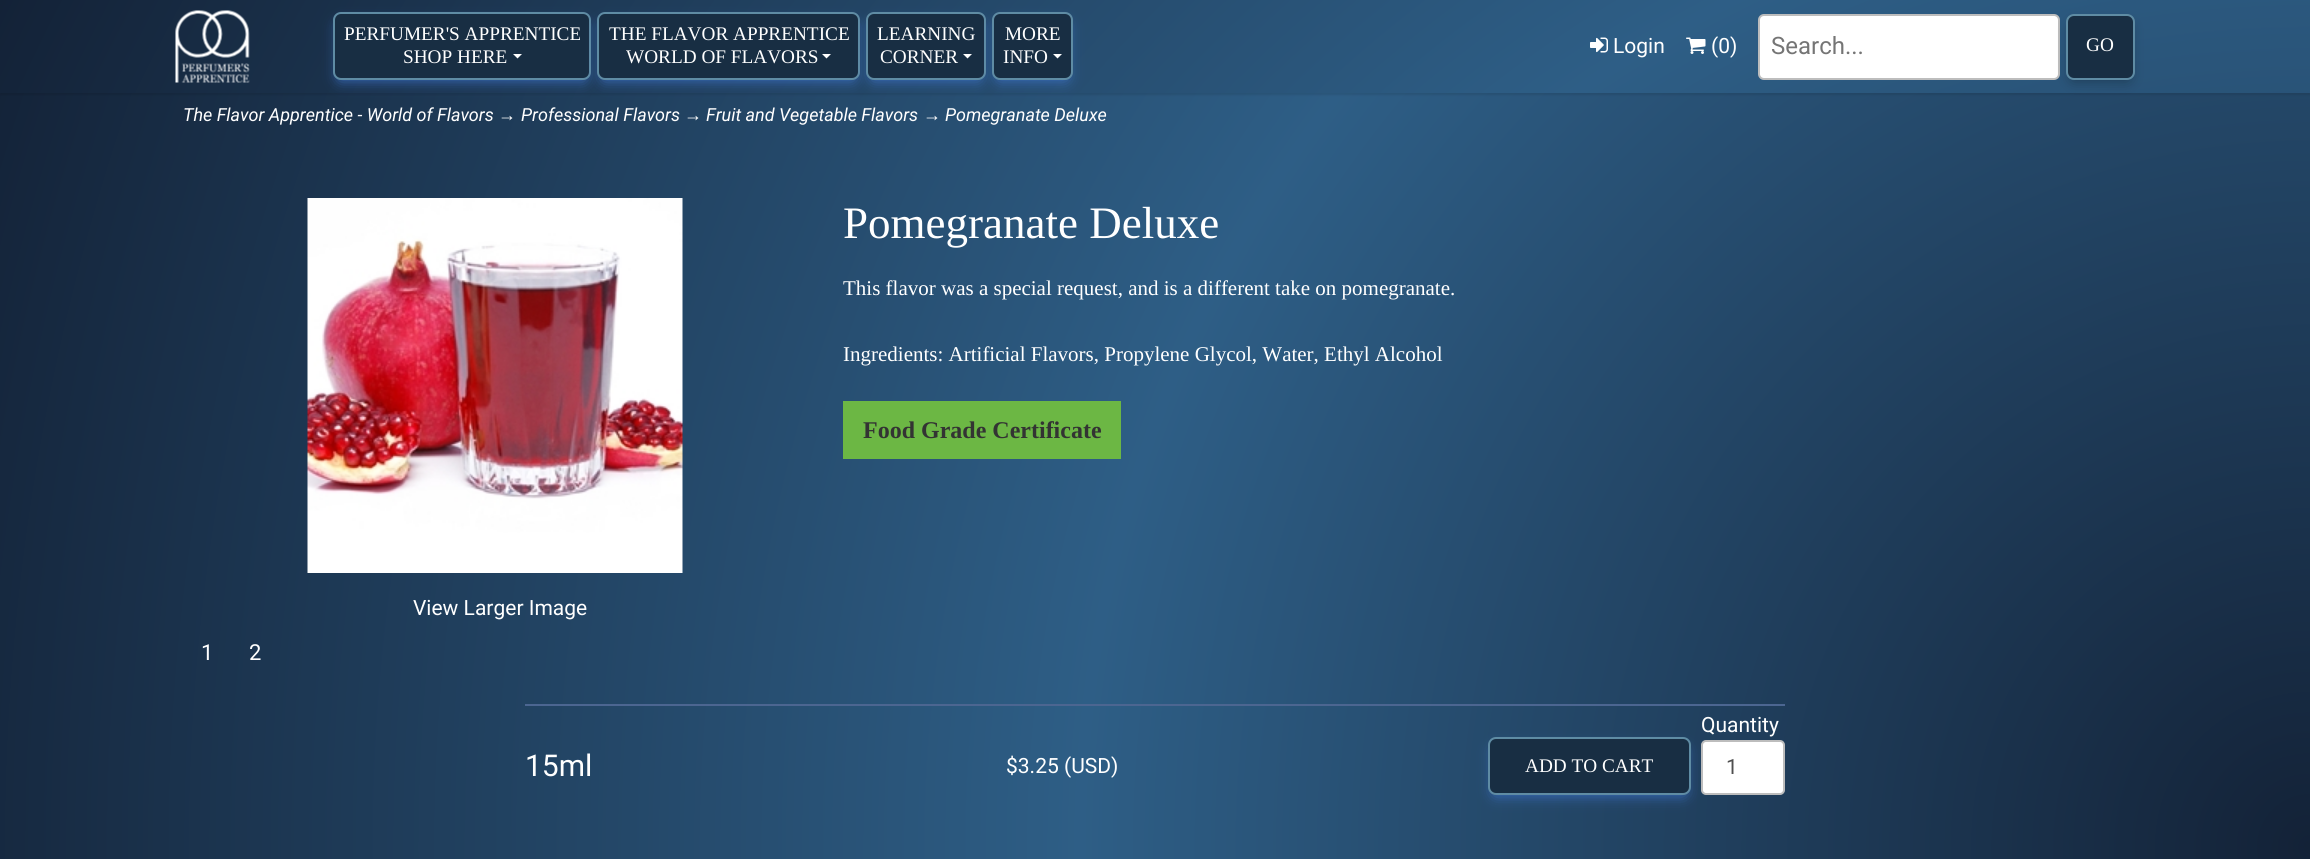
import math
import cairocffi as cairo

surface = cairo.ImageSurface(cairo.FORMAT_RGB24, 2310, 859)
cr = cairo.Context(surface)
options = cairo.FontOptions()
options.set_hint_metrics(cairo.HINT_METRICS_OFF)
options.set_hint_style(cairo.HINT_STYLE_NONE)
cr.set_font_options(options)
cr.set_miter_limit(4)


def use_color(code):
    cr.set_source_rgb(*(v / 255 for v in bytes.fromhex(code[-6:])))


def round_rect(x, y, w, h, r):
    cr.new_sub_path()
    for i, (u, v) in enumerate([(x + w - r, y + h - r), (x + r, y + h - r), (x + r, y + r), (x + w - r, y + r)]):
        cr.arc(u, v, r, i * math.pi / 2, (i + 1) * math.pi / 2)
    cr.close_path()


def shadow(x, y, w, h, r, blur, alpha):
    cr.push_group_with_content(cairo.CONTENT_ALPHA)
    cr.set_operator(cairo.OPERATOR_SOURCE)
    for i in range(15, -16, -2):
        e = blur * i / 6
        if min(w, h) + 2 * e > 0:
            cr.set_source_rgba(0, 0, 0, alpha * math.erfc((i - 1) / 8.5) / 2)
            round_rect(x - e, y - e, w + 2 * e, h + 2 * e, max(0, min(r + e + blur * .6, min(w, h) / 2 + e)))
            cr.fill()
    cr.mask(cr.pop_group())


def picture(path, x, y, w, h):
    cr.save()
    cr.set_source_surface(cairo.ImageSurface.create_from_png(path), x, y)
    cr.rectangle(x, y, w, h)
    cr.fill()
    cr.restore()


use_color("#ffffff")
cr.paint()
gradient = cairo.RadialGradient(2310, 847, 0, 2310, 847, 2460)
gradient.add_color_stop_rgba(0, 0.075, 0.133, 0.216, 1)
gradient.add_color_stop_rgba(0.5, 0.18, 0.369, 0.525, 1)
gradient.add_color_stop_rgba(1, 0.075, 0.133, 0.216, 1)
cr.set_source(gradient)
cr.rectangle(0, 93, 2310, 766)
cr.fill()
use_color("#000000")
shadow(0, 2, 2310, 93, 0, 1, 0.1)
gradient = cairo.RadialGradient(2310, 1155, 0, 2310, 1155, 2583)
gradient.add_color_stop_rgba(0, 0.075, 0.133, 0.216, 1)
gradient.add_color_stop_rgba(0.5, 0.18, 0.369, 0.525, 1)
gradient.add_color_stop_rgba(1, 0.075, 0.133, 0.216, 1)
cr.set_source(gradient)
cr.rectangle(0, 0, 2310, 93)
cr.fill()
picture("img1.png", 175, 10, 75, 73)
use_color("#3b71ca")
shadow(339, 24, 246, 56, 1.5, 7, 1)
use_color("#182e43")
round_rect(334, 13, 256, 66, 7)
cr.fill_preserve()
use_color("#5f8ca4")
cr.stroke()
cr.select_font_face("Liberation Serif")
cr.set_font_size(19.25)
use_color("#ffffff")
cr.move_to(344, 40)
cr.show_text("PERFUMER'S APPRENTICE")
cr.move_to(403, 63)
cr.show_text("SHOP HERE")
cr.new_path()
cr.move_to(513, 54)
cr.line_to(522, 54)
cr.line_to(517.5, 58.5)
cr.close_path()
cr.fill()
use_color("#3b71ca")
shadow(603, 24, 251, 56, 1.5, 7, 1)
use_color("#182e43")
round_rect(598, 13, 261, 66, 7)
cr.fill_preserve()
use_color("#5f8ca4")
cr.stroke()
use_color("#ffffff")
cr.move_to(609, 40)
cr.show_text("THE FLAVOR APPRENTICE")
cr.move_to(626, 63)
cr.show_text("WORLD OF FLAVORS")
cr.new_path()
cr.move_to(822, 54)
cr.line_to(831, 54)
cr.line_to(826.5, 58.5)
cr.close_path()
cr.fill()
use_color("#3b71ca")
shadow(872, 24, 108, 56, 1.5, 7, 1)
use_color("#182e43")
round_rect(867, 13, 118, 66, 7)
cr.fill_preserve()
use_color("#5f8ca4")
cr.stroke()
use_color("#ffffff")
cr.move_to(877, 40)
cr.show_text("LEARNING")
cr.move_to(880, 63)
cr.show_text("CORNER")
cr.new_path()
cr.move_to(963, 54)
cr.line_to(972, 54)
cr.line_to(967.5, 58.5)
cr.close_path()
cr.fill()
use_color("#3b71ca")
shadow(998, 24, 69, 56, 1.5, 7, 1)
use_color("#182e43")
round_rect(993, 13, 79, 66, 7)
cr.fill_preserve()
use_color("#5f8ca4")
cr.stroke()
use_color("#ffffff")
cr.move_to(1005, 40)
cr.show_text("MORE")
cr.move_to(1003, 63)
cr.show_text("INFO")
cr.new_path()
cr.move_to(1053, 54)
cr.line_to(1062, 54)
cr.line_to(1057.5, 58.5)
cr.close_path()
cr.fill()
picture("img2.png", 1590, 37, 18, 16)
cr.select_font_face("Roboto")
cr.set_font_size(21)
cr.move_to(1613, 53)
cr.show_text("Login")
picture("img3.png", 1686, 37, 20, 17)
cr.move_to(1711, 53)
cr.show_text("(0)")
round_rect(1759, 15, 300, 64, 5)
cr.fill_preserve()
use_color("#bdbdbd")
cr.stroke()
cr.set_font_size(24)
use_color("#757575")
cr.move_to(1771, 54)
cr.show_text("Search...")
use_color("#000000")
shadow(2072, 26, 57, 54, 1.5, 7, 0.35)
use_color("#182e43")
round_rect(2067, 15, 67, 64, 7)
cr.fill_preserve()
use_color("#5f8ca4")
cr.stroke()
cr.select_font_face("Liberation Serif")
cr.set_font_size(19.25)
use_color("#ffffff")
cr.move_to(2086, 51)
cr.show_text("GO")
cr.select_font_face("Roboto", cairo.FONT_SLANT_ITALIC)
cr.set_font_size(18)
cr.move_to(183, 121)
cr.show_text("The Flavor Apprentice - World of Flavors")
cr.select_font_face("Liberation Sans", cairo.FONT_SLANT_ITALIC)
cr.move_to(498, 121)
cr.show_text("→")
cr.select_font_face("Roboto", cairo.FONT_SLANT_ITALIC)
cr.move_to(521, 121)
cr.show_text("Professional Flavors")
cr.select_font_face("Liberation Sans", cairo.FONT_SLANT_ITALIC)
cr.move_to(684, 121)
cr.show_text("→")
cr.select_font_face("Roboto", cairo.FONT_SLANT_ITALIC)
cr.move_to(706, 121)
cr.show_text("Fruit and Vegetable Flavors")
cr.select_font_face("Liberation Sans", cairo.FONT_SLANT_ITALIC)
cr.move_to(923, 121)
cr.show_text("→")
cr.select_font_face("Roboto", cairo.FONT_SLANT_ITALIC)
cr.move_to(945, 121)
cr.show_text("Pomegranate Deluxe")
cr.select_font_face("Liberation Serif")
cr.set_font_size(45)
cr.move_to(843, 238)
cr.show_text("Pomegranate Deluxe")
cr.set_font_size(21)
cr.move_to(843, 295)
cr.show_text("This flavor was a special request, and is a different take on pomegranate.")
cr.move_to(843, 361)
cr.show_text("Ingredients: Artificial Flavors, Propylene Glycol, Water, Ethyl Alcohol")
use_color("#6cb744")
cr.rectangle(843, 401, 278, 58)
cr.fill()
cr.select_font_face("Liberation Serif", cairo.FONT_SLANT_NORMAL, cairo.FONT_WEIGHT_BOLD)
cr.set_font_size(24)
use_color("#333333")
cr.move_to(863, 438)
cr.show_text("Food Grade Certificate")
picture("img4.png", 307, 198, 376, 375)
cr.select_font_face("Roboto")
cr.set_font_size(21)
use_color("#ffffff")
cr.move_to(413, 615)
cr.show_text("View Larger Image")
cr.set_font_size(22)
cr.move_to(201, 660)
cr.show_text("1")
cr.move_to(249, 660)
cr.show_text("2")
use_color("#4c6691")
cr.rectangle(525, 704, 1260, 2)
cr.fill()
cr.set_font_size(30)
use_color("#ffffff")
cr.move_to(525, 776)
cr.show_text("15ml")
cr.set_font_size(21)
cr.move_to(1006, 773)
cr.show_text("$3.25 (USD)")
use_color("#3b71ca")
shadow(1494, 749, 191, 46, 1.5, 7, 1)
use_color("#182e43")
round_rect(1489, 738, 201, 56, 7)
cr.fill_preserve()
use_color("#5f8ca4")
cr.stroke()
cr.select_font_face("Liberation Serif")
cr.set_font_size(19.25)
use_color("#ffffff")
cr.move_to(1525, 772)
cr.show_text("ADD TO CART")
cr.select_font_face("Roboto")
cr.set_font_size(21)
cr.move_to(1701, 732)
cr.show_text("Quantity")
round_rect(1702, 741, 82, 53, 4)
cr.fill_preserve()
use_color("#bdbdbd")
cr.stroke()
use_color("#4f4f4f")
cr.move_to(1726, 774)
cr.show_text("1")
surface.write_to_png("result.png")
